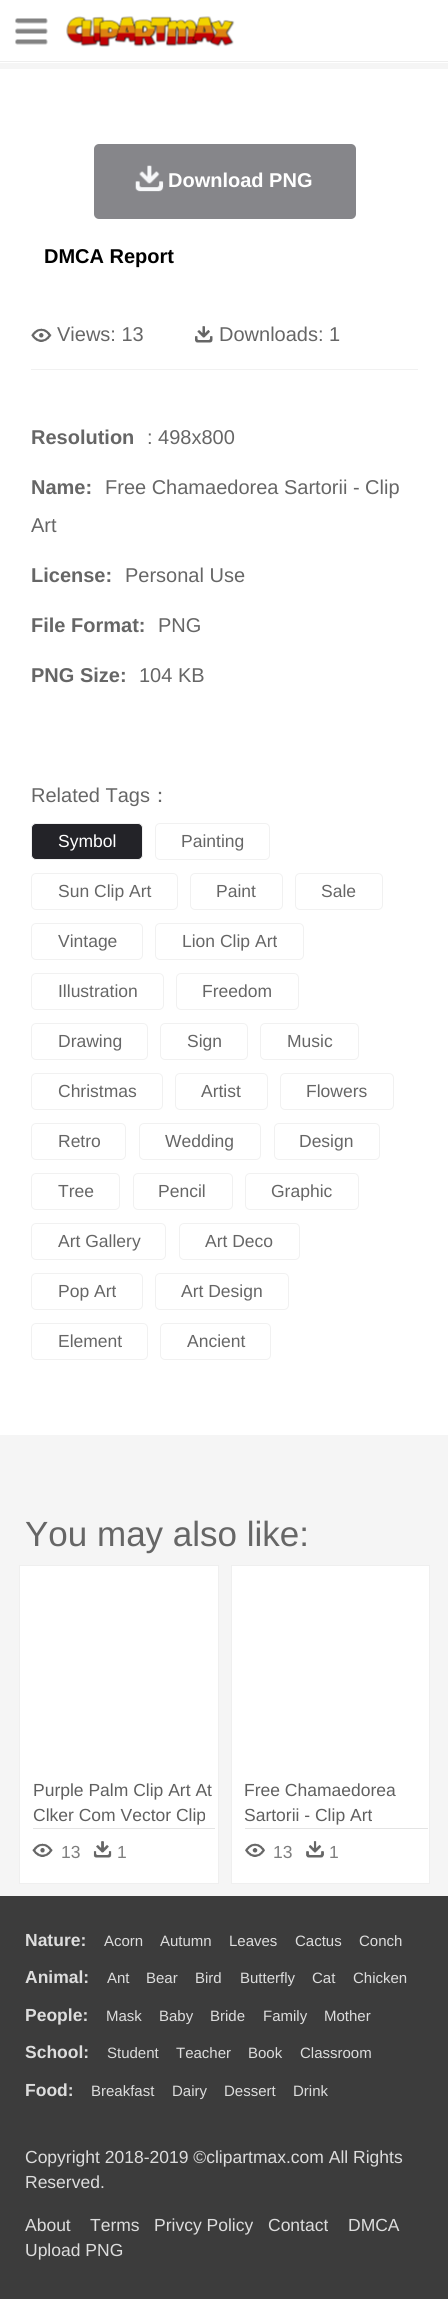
import math
import cairocffi as cairo

surface = cairo.ImageSurface(cairo.FORMAT_RGB24, 448, 2299)
cr = cairo.Context(surface)
options = cairo.FontOptions()
options.set_hint_metrics(cairo.HINT_METRICS_OFF)
options.set_hint_style(cairo.HINT_STYLE_NONE)
cr.set_font_options(options)
cr.set_miter_limit(4)


def use_color(code):
    cr.set_source_rgb(*(v / 255 for v in bytes.fromhex(code[-6:])))


def round_rect(x, y, w, h, r):
    cr.new_sub_path()
    for i, (u, v) in enumerate([(x + w - r, y + h - r), (x + r, y + h - r), (x + r, y + r), (x + w - r, y + r)]):
        cr.arc(u, v, r, i * math.pi / 2, (i + 1) * math.pi / 2)
    cr.close_path()


def picture(path, x, y, w, h):
    cr.save()
    cr.set_source_surface(cairo.ImageSurface.create_from_png(path), x, y)
    cr.rectangle(x, y, w, h)
    cr.fill()
    cr.restore()


use_color("#f5f5f5")
cr.paint()
use_color("#ffffff")
cr.rectangle(0, 0, 448, 63)
cr.fill()
use_color("#eeeeee")
cr.rectangle(0, 61, 448, 1)
cr.fill()
picture("img1.png", 15, 18, 33, 27)
picture("img2.png", 66, 16, 169, 31)
use_color("#ffffff")
cr.rectangle(0, 69, 448, 1366)
cr.fill()
use_color("#86868a")
round_rect(94, 144, 262, 75, 5)
cr.fill()
picture("img3.png", 135, 165, 29, 27)
cr.select_font_face("Liberation Sans", cairo.FONT_SLANT_NORMAL, cairo.FONT_WEIGHT_BOLD)
cr.set_font_size(20)
use_color("#ffffff")
cr.move_to(168, 187)
cr.show_text("Download PNG")
use_color("#000000")
cr.move_to(44, 263)
cr.show_text("DMCA Report")
use_color("#f1f1f1")
cr.rectangle(31, 369, 387, 1)
cr.fill()
picture("img4.png", 31, 328, 21, 14)
cr.select_font_face("Liberation Sans")
use_color("#666666")
cr.move_to(57, 341)
cr.show_text("Views: 13")
picture("img5.png", 195, 326, 18, 17)
cr.move_to(219, 341)
cr.show_text("Downloads: 1")
cr.select_font_face("Liberation Sans", cairo.FONT_SLANT_NORMAL, cairo.FONT_WEIGHT_BOLD)
cr.move_to(31, 444)
cr.show_text("Resolution")
cr.select_font_face("Liberation Sans")
cr.move_to(147, 444)
cr.show_text(": 498x800")
cr.select_font_face("Liberation Sans", cairo.FONT_SLANT_NORMAL, cairo.FONT_WEIGHT_BOLD)
cr.move_to(31, 494)
cr.show_text("Name:")
cr.select_font_face("Liberation Sans")
cr.move_to(105, 494)
cr.show_text("Free Chamaedorea Sartorii - Clip")
cr.move_to(31, 532)
cr.show_text("Art")
cr.select_font_face("Liberation Sans", cairo.FONT_SLANT_NORMAL, cairo.FONT_WEIGHT_BOLD)
cr.move_to(31, 582)
cr.show_text("License:")
cr.select_font_face("Liberation Sans")
cr.move_to(125, 582)
cr.show_text("Personal Use")
cr.select_font_face("Liberation Sans", cairo.FONT_SLANT_NORMAL, cairo.FONT_WEIGHT_BOLD)
cr.move_to(31, 632)
cr.show_text("File Format:")
cr.select_font_face("Liberation Sans")
cr.move_to(158, 632)
cr.show_text("PNG")
cr.select_font_face("Liberation Sans", cairo.FONT_SLANT_NORMAL, cairo.FONT_WEIGHT_BOLD)
cr.move_to(31, 682)
cr.show_text("PNG Size:")
cr.select_font_face("Liberation Sans")
cr.move_to(139, 682)
cr.show_text("104 KB")
cr.move_to(31, 802)
cr.show_text("Related Tags")
cr.select_font_face("WenQuanYi Zen Hei Medium")
cr.move_to(150, 802)
cr.show_text("：")
use_color("#232328")
round_rect(31.5, 823.5, 111, 36, 4.5)
cr.fill_preserve()
use_color("#f1f1f1")
cr.set_line_width(1)
cr.stroke()
cr.select_font_face("Liberation Sans")
cr.set_font_size(17.5)
use_color("#ffffff")
cr.move_to(58, 847)
cr.show_text("Symbol")
round_rect(155.5, 823.5, 114, 36, 4.5)
use_color("#f1f1f1")
cr.stroke()
use_color("#666666")
cr.move_to(181, 847)
cr.show_text("Painting")
round_rect(31.5, 873.5, 146, 36, 4.5)
use_color("#f1f1f1")
cr.stroke()
use_color("#666666")
cr.move_to(58, 897)
cr.show_text("Sun Clip Art")
round_rect(190.5, 873.5, 92, 36, 4.5)
use_color("#f1f1f1")
cr.stroke()
use_color("#666666")
cr.move_to(216, 897)
cr.show_text("Paint")
round_rect(295.5, 873.5, 87, 36, 4.5)
use_color("#f1f1f1")
cr.stroke()
use_color("#666666")
cr.move_to(321, 897)
cr.show_text("Sale")
round_rect(31.5, 923.5, 111, 36, 4.5)
use_color("#f1f1f1")
cr.stroke()
use_color("#666666")
cr.move_to(58, 947)
cr.show_text("Vintage")
round_rect(155.5, 923.5, 148, 36, 4.5)
use_color("#f1f1f1")
cr.stroke()
use_color("#666666")
cr.move_to(182, 947)
cr.show_text("Lion Clip Art")
round_rect(31.5, 973.5, 132, 36, 4.5)
use_color("#f1f1f1")
cr.stroke()
use_color("#666666")
cr.move_to(58, 997)
cr.show_text("Illustration")
round_rect(176.5, 973.5, 122, 36, 4.5)
use_color("#f1f1f1")
cr.stroke()
use_color("#666666")
cr.move_to(202, 997)
cr.show_text("Freedom")
round_rect(31.5, 1023.5, 116, 36, 4.5)
use_color("#f1f1f1")
cr.stroke()
use_color("#666666")
cr.move_to(58, 1047)
cr.show_text("Drawing")
round_rect(160.5, 1023.5, 87, 36, 4.5)
use_color("#f1f1f1")
cr.stroke()
use_color("#666666")
cr.move_to(187, 1047)
cr.show_text("Sign")
round_rect(260.5, 1023.5, 98, 36, 4.5)
use_color("#f1f1f1")
cr.stroke()
use_color("#666666")
cr.move_to(287, 1047)
cr.show_text("Music")
round_rect(31.5, 1073.5, 131, 36, 4.5)
use_color("#f1f1f1")
cr.stroke()
use_color("#666666")
cr.move_to(58, 1097)
cr.show_text("Christmas")
round_rect(175.5, 1073.5, 92, 36, 4.5)
use_color("#f1f1f1")
cr.stroke()
use_color("#666666")
cr.move_to(201, 1097)
cr.show_text("Artist")
round_rect(280.5, 1073.5, 113, 36, 4.5)
use_color("#f1f1f1")
cr.stroke()
use_color("#666666")
cr.move_to(306, 1097)
cr.show_text("Flowers")
round_rect(31.5, 1123.5, 94, 36, 4.5)
use_color("#f1f1f1")
cr.stroke()
use_color("#666666")
cr.move_to(58, 1147)
cr.show_text("Retro")
round_rect(139.5, 1123.5, 121, 36, 4.5)
use_color("#f1f1f1")
cr.stroke()
use_color("#666666")
cr.move_to(165, 1147)
cr.show_text("Wedding")
round_rect(274.5, 1123.5, 105, 36, 4.5)
use_color("#f1f1f1")
cr.stroke()
use_color("#666666")
cr.move_to(299, 1147)
cr.show_text("Design")
round_rect(31.5, 1173.5, 88, 36, 4.5)
use_color("#f1f1f1")
cr.stroke()
use_color("#666666")
cr.move_to(58, 1197)
cr.show_text("Tree")
round_rect(133.5, 1173.5, 99, 36, 4.5)
use_color("#f1f1f1")
cr.stroke()
use_color("#666666")
cr.move_to(158, 1197)
cr.show_text("Pencil")
round_rect(245.5, 1173.5, 113, 36, 4.5)
use_color("#f1f1f1")
cr.stroke()
use_color("#666666")
cr.move_to(271, 1197)
cr.show_text("Graphic")
round_rect(31.5, 1223.5, 134, 36, 4.5)
use_color("#f1f1f1")
cr.stroke()
use_color("#666666")
cr.move_to(58, 1247)
cr.show_text("Art Gallery")
round_rect(179.5, 1223.5, 120, 36, 4.5)
use_color("#f1f1f1")
cr.stroke()
use_color("#666666")
cr.move_to(205, 1247)
cr.show_text("Art Deco")
round_rect(31.5, 1273.5, 111, 36, 4.5)
use_color("#f1f1f1")
cr.stroke()
use_color("#666666")
cr.move_to(58, 1297)
cr.show_text("Pop Art")
round_rect(155.5, 1273.5, 133, 36, 4.5)
use_color("#f1f1f1")
cr.stroke()
use_color("#666666")
cr.move_to(181, 1297)
cr.show_text("Art Design")
round_rect(31.5, 1323.5, 116, 36, 4.5)
use_color("#f1f1f1")
cr.stroke()
use_color("#666666")
cr.move_to(58, 1347)
cr.show_text("Element")
round_rect(160.5, 1323.5, 110, 36, 4.5)
use_color("#f1f1f1")
cr.stroke()
use_color("#666666")
cr.move_to(187, 1347)
cr.show_text("Ancient")
cr.set_font_size(35)
cr.move_to(25, 1546)
cr.show_text("You may also like:")
use_color("#ffffff")
cr.rectangle(19.5, 1565.5, 199, 318)
cr.fill_preserve()
use_color("#efefef")
cr.stroke()
use_color("#e4e4e4")
cr.rectangle(33, 1828, 182, 1)
cr.fill()
cr.set_font_size(17.5)
use_color("#5f5f5f")
cr.move_to(33, 1796)
cr.show_text("Purple Palm Clip Art At")
cr.move_to(33, 1821)
cr.show_text("Clker Com Vector Clip")
picture("img6.png", 32, 1843, 21, 14)
use_color("#7e7e7e")
cr.move_to(61, 1858)
cr.show_text("13")
picture("img7.png", 93, 1841, 19, 17)
cr.move_to(117, 1858)
cr.show_text("1")
use_color("#ffffff")
cr.rectangle(231.5, 1565.5, 198, 318)
cr.fill_preserve()
use_color("#efefef")
cr.stroke()
use_color("#e4e4e4")
cr.rectangle(245, 1828, 183, 1)
cr.fill()
use_color("#5f5f5f")
cr.move_to(244, 1796)
cr.show_text("Free Chamaedorea")
cr.move_to(244, 1821)
cr.show_text("Sartorii - Clip Art")
picture("img8.png", 245, 1843, 20, 14)
use_color("#7e7e7e")
cr.move_to(273, 1858)
cr.show_text("13")
picture("img9.png", 306, 1841, 18, 17)
cr.move_to(329, 1858)
cr.show_text("1")
use_color("#3c3c3c")
cr.rectangle(0, 1896, 448, 403)
cr.fill()
cr.select_font_face("Liberation Sans", cairo.FONT_SLANT_NORMAL, cairo.FONT_WEIGHT_BOLD)
use_color("#dddddd")
cr.move_to(25, 1946)
cr.show_text("Nature:")
cr.select_font_face("Liberation Sans")
cr.set_font_size(15)
cr.move_to(104, 1946)
cr.show_text("Acorn")
cr.move_to(160, 1946)
cr.show_text("Autumn")
cr.move_to(229, 1946)
cr.show_text("Leaves")
cr.move_to(295, 1946)
cr.show_text("Cactus")
cr.move_to(359, 1946)
cr.show_text("Conch")
cr.select_font_face("Liberation Sans", cairo.FONT_SLANT_NORMAL, cairo.FONT_WEIGHT_BOLD)
cr.set_font_size(17.5)
cr.move_to(25, 1983)
cr.show_text("Animal:")
cr.select_font_face("Liberation Sans")
cr.set_font_size(15)
cr.move_to(107, 1983)
cr.show_text("Ant")
cr.move_to(146, 1983)
cr.show_text("Bear")
cr.move_to(195, 1983)
cr.show_text("Bird")
cr.move_to(240, 1983)
cr.show_text("Butterfly")
cr.move_to(312, 1983)
cr.show_text("Cat")
cr.move_to(353, 1983)
cr.show_text("Chicken")
cr.select_font_face("Liberation Sans", cairo.FONT_SLANT_NORMAL, cairo.FONT_WEIGHT_BOLD)
cr.set_font_size(17.5)
cr.move_to(25, 2021)
cr.show_text("People:")
cr.select_font_face("Liberation Sans")
cr.set_font_size(15)
cr.move_to(106, 2021)
cr.show_text("Mask")
cr.move_to(159, 2021)
cr.show_text("Baby")
cr.move_to(210, 2021)
cr.show_text("Bride")
cr.move_to(263, 2021)
cr.show_text("Family")
cr.move_to(324, 2021)
cr.show_text("Mother")
cr.select_font_face("Liberation Sans", cairo.FONT_SLANT_NORMAL, cairo.FONT_WEIGHT_BOLD)
cr.set_font_size(17.5)
cr.move_to(25, 2058)
cr.show_text("School:")
cr.select_font_face("Liberation Sans")
cr.set_font_size(15)
cr.move_to(107, 2058)
cr.show_text("Student")
cr.move_to(176, 2058)
cr.show_text("Teacher")
cr.move_to(248, 2058)
cr.show_text("Book")
cr.move_to(300, 2058)
cr.show_text("Classroom")
cr.select_font_face("Liberation Sans", cairo.FONT_SLANT_NORMAL, cairo.FONT_WEIGHT_BOLD)
cr.set_font_size(17.5)
cr.move_to(25, 2096)
cr.show_text("Food:")
cr.select_font_face("Liberation Sans")
cr.set_font_size(15)
cr.move_to(91, 2096)
cr.show_text("Breakfast")
cr.move_to(172, 2096)
cr.show_text("Dairy")
cr.move_to(224, 2096)
cr.show_text("Dessert")
cr.move_to(293, 2096)
cr.show_text("Drink")
cr.set_font_size(17.5)
cr.move_to(25, 2163)
cr.show_text("Copyright 2018-2019 ©clipartmax.com All Rights")
cr.move_to(25, 2188)
cr.show_text("Reserved.")
cr.move_to(25, 2231)
cr.show_text("About")
cr.move_to(90, 2231)
cr.show_text("Terms")
cr.move_to(154, 2231)
cr.show_text("Privcy Policy")
cr.move_to(268, 2231)
cr.show_text("Contact")
cr.move_to(348, 2231)
cr.show_text("DMCA")
cr.move_to(25, 2256)
cr.show_text("Upload PNG")
surface.write_to_png("result.png")
